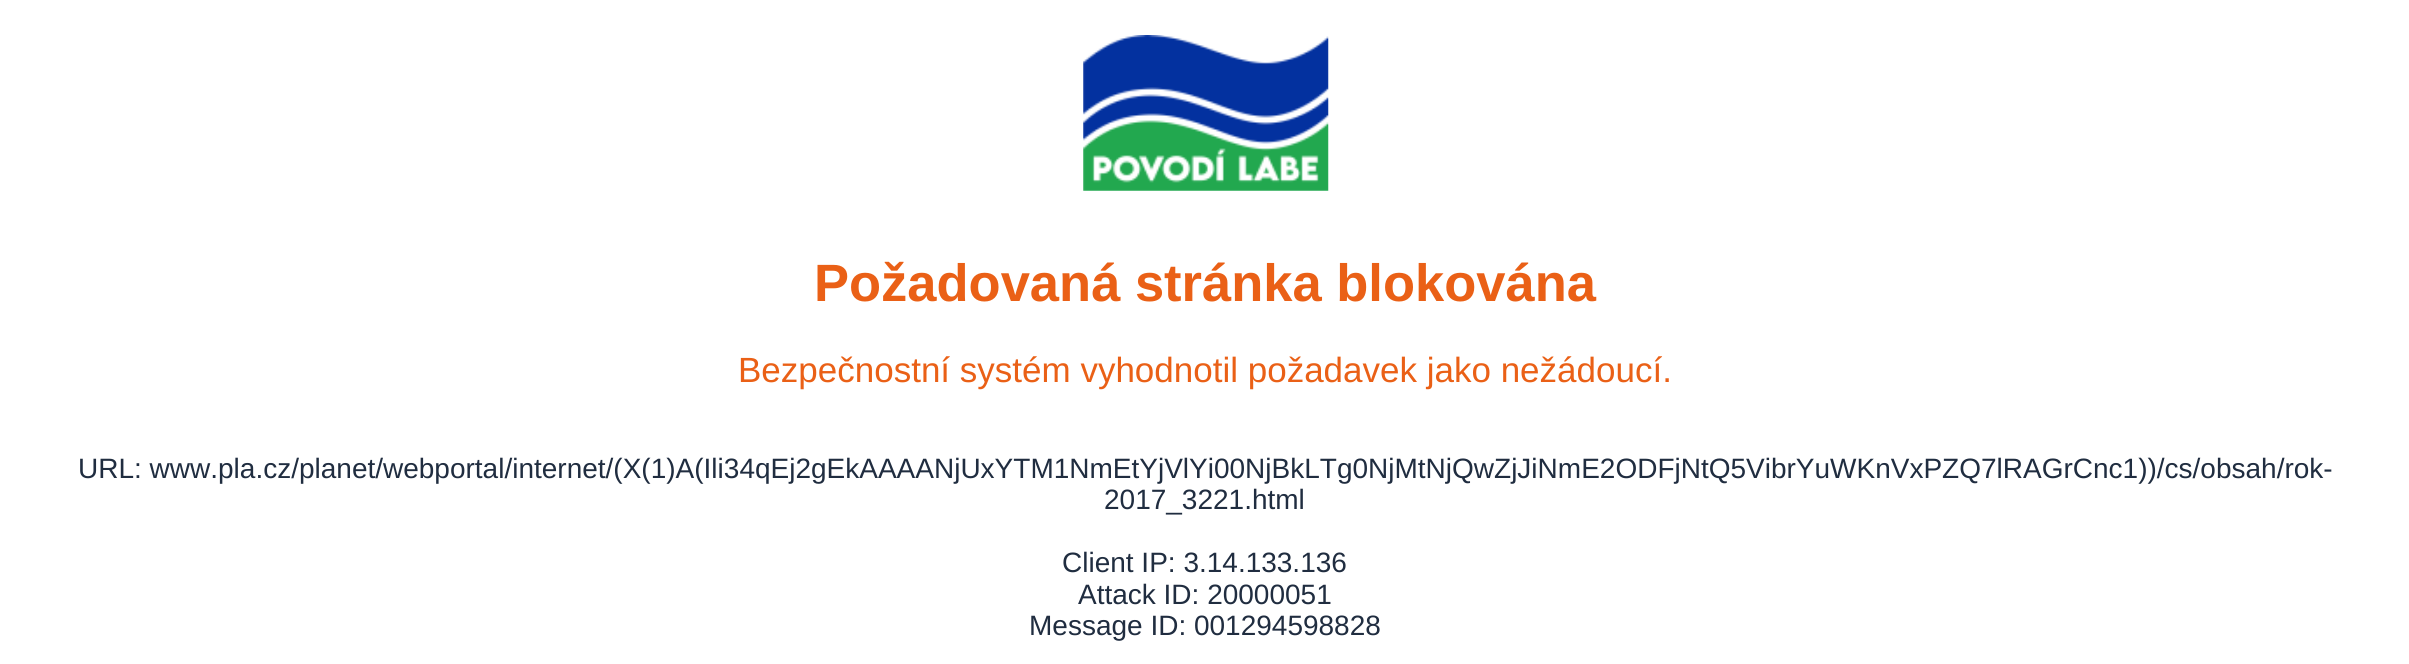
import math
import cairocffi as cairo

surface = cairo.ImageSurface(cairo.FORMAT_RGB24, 2409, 664)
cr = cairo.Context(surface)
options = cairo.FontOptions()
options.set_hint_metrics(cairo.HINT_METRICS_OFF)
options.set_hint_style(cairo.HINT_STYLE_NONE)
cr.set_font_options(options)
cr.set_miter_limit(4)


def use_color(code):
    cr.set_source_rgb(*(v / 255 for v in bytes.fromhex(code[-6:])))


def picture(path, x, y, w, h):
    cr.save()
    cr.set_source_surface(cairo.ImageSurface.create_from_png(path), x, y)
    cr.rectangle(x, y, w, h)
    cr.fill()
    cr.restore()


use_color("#ffffff")
cr.paint()
picture("img1.png", 1083, 35, 246, 156)
cr.select_font_face("Liberation Sans", cairo.FONT_SLANT_NORMAL, cairo.FONT_WEIGHT_BOLD)
cr.set_font_size(52.5)
use_color("#ea6016")
cr.move_to(814, 301)
cr.show_text("Požadovaná stránka blokována")
cr.select_font_face("Liberation Sans")
cr.set_font_size(35)
cr.move_to(738, 382)
cr.show_text("Bezpečnostní systém vyhodnotil požadavek jako nežádoucí.")
cr.set_font_size(28)
use_color("#202d40")
cr.move_to(78, 478)
cr.show_text("URL: www.pla.cz/planet/webportal/internet/(X(1)A(Ili34qEj2gEkAAAANjUxYTM1NmEtYjVlYi00NjBkLTg0NjMtNjQwZjJiNmE2ODFjNtQ5VibrYuWKnVxPZQ7lRAGrCnc1))/cs/obsah/rok-")
cr.move_to(1104, 509)
cr.show_text("2017_3221.html")
cr.move_to(1062, 572)
cr.show_text("Client IP: 3.14.133.136")
cr.move_to(1078, 604)
cr.show_text("Attack ID: 20000051")
cr.move_to(1029, 635)
cr.show_text("Message ID: 001294598828")
surface.write_to_png("result.png")
